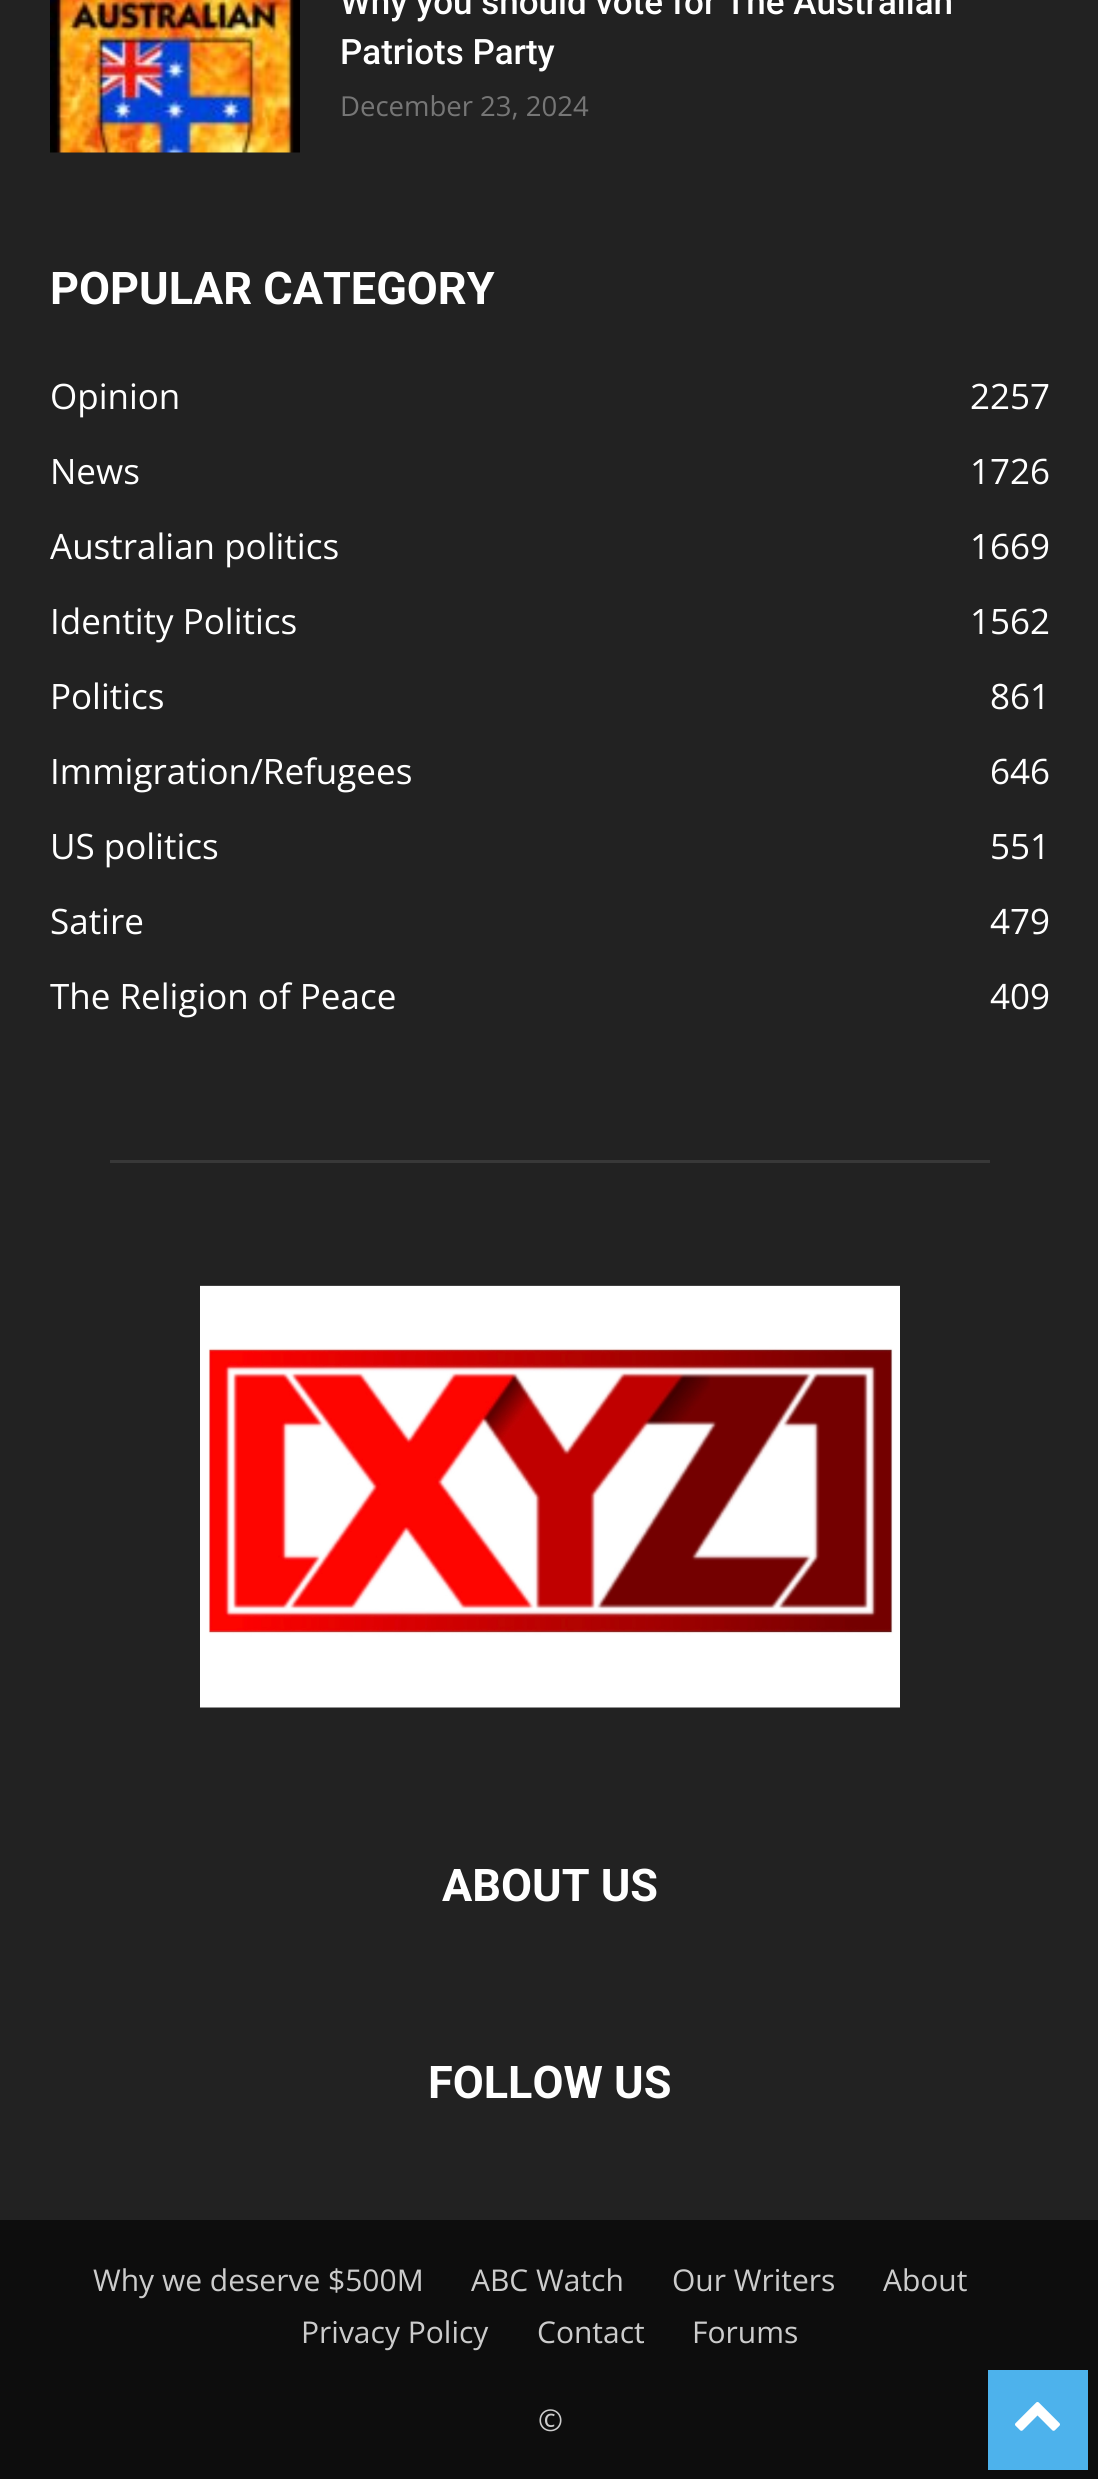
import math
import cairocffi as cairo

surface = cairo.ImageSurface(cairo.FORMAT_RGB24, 1098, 2479)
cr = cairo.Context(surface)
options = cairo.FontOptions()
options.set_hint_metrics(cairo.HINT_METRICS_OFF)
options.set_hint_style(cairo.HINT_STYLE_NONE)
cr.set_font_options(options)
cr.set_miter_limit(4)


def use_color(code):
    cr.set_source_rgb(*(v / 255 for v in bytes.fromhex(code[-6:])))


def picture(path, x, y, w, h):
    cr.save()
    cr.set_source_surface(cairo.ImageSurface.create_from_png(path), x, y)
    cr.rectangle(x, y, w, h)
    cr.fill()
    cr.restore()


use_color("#0d0d0d")
cr.paint()
use_color("#222222")
cr.rectangle(0, 0, 1098, 2220)
cr.fill()
picture("img1.png", 50, 0, 250, 153)
cr.select_font_face("Roboto Medium")
cr.set_font_size(35)
use_color("#ffffff")
cr.move_to(340, 14)
cr.show_text("Why you should vote for The Australian")
cr.move_to(340, 64)
cr.show_text("Patriots Party")
cr.select_font_face("Open Sans")
cr.set_font_size(27.5)
use_color("#767676")
cr.move_to(340, 116)
cr.show_text("December 23, 2024")
cr.select_font_face("Roboto", cairo.FONT_SLANT_NORMAL, cairo.FONT_WEIGHT_BOLD)
cr.set_font_size(45)
use_color("#ffffff")
cr.move_to(50, 304)
cr.show_text("POPULAR CATEGORY")
cr.select_font_face("Open Sans")
cr.set_font_size(35)
cr.move_to(50, 409)
cr.show_text("Opinion")
cr.move_to(970, 409)
cr.show_text("2257")
cr.move_to(50, 484)
cr.show_text("News")
cr.move_to(970, 484)
cr.show_text("1726")
cr.move_to(50, 559)
cr.show_text("Australian politics")
cr.move_to(970, 559)
cr.show_text("1669")
cr.move_to(50, 634)
cr.show_text("Identity Politics")
cr.move_to(970, 634)
cr.show_text("1562")
cr.move_to(50, 709)
cr.show_text("Politics")
cr.move_to(990, 709)
cr.show_text("861")
cr.move_to(50, 784)
cr.show_text("Immigration/Refugees")
cr.move_to(990, 784)
cr.show_text("646")
cr.move_to(50, 859)
cr.show_text("US politics")
cr.move_to(990, 859)
cr.show_text("551")
cr.move_to(50, 934)
cr.show_text("Satire")
cr.move_to(990, 934)
cr.show_text("479")
cr.move_to(50, 1009)
cr.show_text("The Religion of Peace")
cr.move_to(990, 1009)
cr.show_text("409")
use_color("#383838")
cr.rectangle(110, 1160, 880, 3)
cr.fill()
picture("img2.png", 200, 1285, 700, 423)
cr.select_font_face("Roboto", cairo.FONT_SLANT_NORMAL, cairo.FONT_WEIGHT_BOLD)
cr.set_font_size(45)
use_color("#ffffff")
cr.move_to(442, 1901)
cr.show_text("ABOUT US")
cr.move_to(428, 2098)
cr.show_text("FOLLOW US")
cr.select_font_face("Open Sans")
cr.set_font_size(30)
use_color("#cccccc")
cr.move_to(93, 2291)
cr.show_text("Why we deserve $500M")
cr.move_to(471, 2291)
cr.show_text("ABC Watch")
cr.move_to(672, 2291)
cr.show_text("Our Writers")
cr.move_to(883, 2291)
cr.show_text("About")
cr.move_to(301, 2343)
cr.show_text("Privacy Policy")
cr.move_to(537, 2343)
cr.show_text("Contact")
cr.move_to(692, 2343)
cr.show_text("Forums")
cr.move_to(538, 2431)
cr.show_text("©")
use_color("#4db2ec")
cr.rectangle(988, 2370, 100, 100)
cr.fill()
picture("img3.png", 1015, 2402, 45, 29)
surface.write_to_png("result.png")
